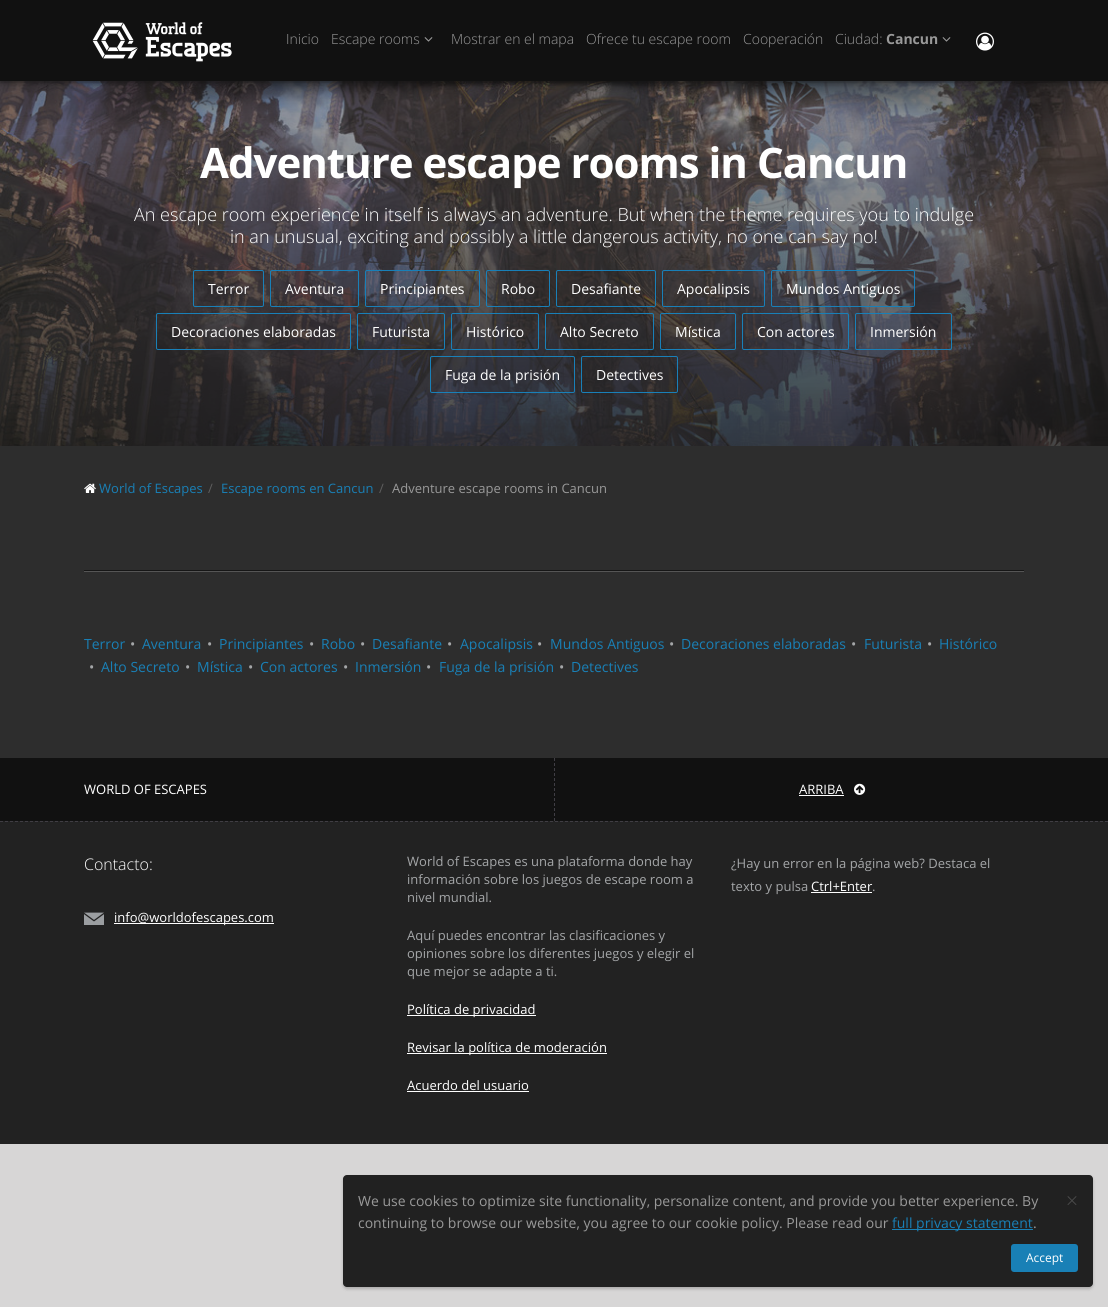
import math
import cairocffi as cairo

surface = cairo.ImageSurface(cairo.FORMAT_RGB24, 1108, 1307)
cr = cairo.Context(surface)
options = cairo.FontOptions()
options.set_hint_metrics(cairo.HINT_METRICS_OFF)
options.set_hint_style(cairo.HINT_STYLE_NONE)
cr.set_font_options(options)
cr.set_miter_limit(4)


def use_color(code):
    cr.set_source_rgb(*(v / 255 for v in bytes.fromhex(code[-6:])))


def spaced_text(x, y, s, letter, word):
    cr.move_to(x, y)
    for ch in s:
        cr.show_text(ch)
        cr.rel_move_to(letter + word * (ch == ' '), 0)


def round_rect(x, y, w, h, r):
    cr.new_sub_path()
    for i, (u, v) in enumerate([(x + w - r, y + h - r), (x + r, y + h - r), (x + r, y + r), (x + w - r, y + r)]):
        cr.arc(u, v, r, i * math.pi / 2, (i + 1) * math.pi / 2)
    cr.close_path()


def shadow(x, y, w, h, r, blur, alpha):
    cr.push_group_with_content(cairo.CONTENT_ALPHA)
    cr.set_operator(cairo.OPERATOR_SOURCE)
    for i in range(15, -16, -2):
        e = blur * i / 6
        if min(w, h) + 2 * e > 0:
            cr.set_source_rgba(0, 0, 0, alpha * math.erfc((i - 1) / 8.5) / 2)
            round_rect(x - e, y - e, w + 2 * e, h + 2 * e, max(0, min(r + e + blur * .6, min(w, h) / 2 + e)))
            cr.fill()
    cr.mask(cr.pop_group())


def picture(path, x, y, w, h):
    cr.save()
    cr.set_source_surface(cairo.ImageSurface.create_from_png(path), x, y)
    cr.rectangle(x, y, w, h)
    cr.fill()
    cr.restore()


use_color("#d7d6d6")
cr.paint()
use_color("#2d2d2d")
cr.rectangle(0, 446, 1108, 312)
cr.fill()
picture("img5.png", 0, 81, 1108, 365)
picture("img4.png", 0, 81, 1094, 54)
use_color("#111111")
shadow(0, 0, 1108, 81, 0, 4, 1)
use_color("#111111")
cr.rectangle(0, 0, 1108, 81)
cr.fill()
picture("img1.png", 92, 22, 140, 40)
cr.select_font_face("Open Sans Light")
cr.set_font_size(14)
use_color("#999999")
cr.move_to(286, 44)
cr.show_text("Inicio")
cr.move_to(331, 44)
cr.show_text("Escape rooms")
picture("img2.png", 424, 37, 9, 5)
cr.move_to(451, 44)
cr.show_text("Mostrar en el mapa")
cr.move_to(586, 44)
cr.show_text("Ofrece tu escape room")
cr.move_to(743, 44)
cr.show_text("Cooperación")
cr.move_to(835, 44)
cr.show_text("Ciudad:")
cr.select_font_face("Open Sans", cairo.FONT_SLANT_NORMAL, cairo.FONT_WEIGHT_BOLD)
cr.move_to(886, 44)
cr.show_text("Cancun")
picture("img2.png", 942, 37, 9, 5)
picture("img3.png", 976, 32, 18, 19)
cr.set_font_size(42)
use_color("#ffffff")
spaced_text(200, 178, "Adventure escape rooms in Cancun", -1, 0)
cr.select_font_face("Open Sans Light")
cr.set_font_size(18)
cr.move_to(134, 221)
cr.show_text("An escape room experience in itself is always an adventure. But when the theme requires you to indulge")
cr.move_to(230, 243)
cr.show_text("in an unusual, exciting and possibly a little dangerous activity, no one can say no!")
round_rect(193.5, 270.5, 70, 36, 1.5)
use_color("#1980b8")
cr.set_line_width(1)
cr.stroke()
cr.select_font_face("Open Sans")
cr.set_font_size(14)
use_color("#ffffff")
cr.move_to(208, 294)
cr.show_text("Terror")
round_rect(270.5, 270.5, 88, 36, 1.5)
use_color("#1980b8")
cr.stroke()
use_color("#ffffff")
cr.move_to(285, 294)
cr.show_text("Aventura")
round_rect(365.5, 270.5, 114, 36, 1.5)
use_color("#1980b8")
cr.stroke()
use_color("#ffffff")
cr.move_to(380, 294)
cr.show_text("Principiantes")
round_rect(486.5, 270.5, 63, 36, 1.5)
use_color("#1980b8")
cr.stroke()
use_color("#ffffff")
cr.move_to(501, 294)
cr.show_text("Robo")
round_rect(556.5, 270.5, 99, 36, 1.5)
use_color("#1980b8")
cr.stroke()
use_color("#ffffff")
cr.move_to(571, 294)
cr.show_text("Desafiante")
round_rect(662.5, 270.5, 102, 36, 1.5)
use_color("#1980b8")
cr.stroke()
use_color("#ffffff")
cr.move_to(677, 294)
cr.show_text("Apocalipsis")
round_rect(771.5, 270.5, 143, 36, 1.5)
use_color("#1980b8")
cr.stroke()
use_color("#ffffff")
cr.move_to(786, 294)
cr.show_text("Mundos Antiguos")
round_rect(156.5, 313.5, 194, 36, 1.5)
use_color("#1980b8")
cr.stroke()
use_color("#ffffff")
cr.move_to(171, 337)
cr.show_text("Decoraciones elaboradas")
round_rect(357.5, 313.5, 87, 36, 1.5)
use_color("#1980b8")
cr.stroke()
use_color("#ffffff")
cr.move_to(372, 337)
cr.show_text("Futurista")
round_rect(451.5, 313.5, 87, 36, 1.5)
use_color("#1980b8")
cr.stroke()
use_color("#ffffff")
cr.move_to(466, 337)
cr.show_text("Histórico")
round_rect(545.5, 313.5, 108, 36, 1.5)
use_color("#1980b8")
cr.stroke()
use_color("#ffffff")
cr.move_to(560, 337)
cr.show_text("Alto Secreto")
round_rect(660.5, 313.5, 75, 36, 1.5)
use_color("#1980b8")
cr.stroke()
use_color("#ffffff")
cr.move_to(675, 337)
cr.show_text("Mística")
round_rect(742.5, 313.5, 106, 36, 1.5)
use_color("#1980b8")
cr.stroke()
use_color("#ffffff")
cr.move_to(757, 337)
cr.show_text("Con actores")
round_rect(855.5, 313.5, 96, 36, 1.5)
use_color("#1980b8")
cr.stroke()
use_color("#ffffff")
cr.move_to(870, 337)
cr.show_text("Inmersión")
round_rect(430.5, 356.5, 144, 36, 1.5)
use_color("#1980b8")
cr.stroke()
use_color("#ffffff")
cr.move_to(445, 380)
cr.show_text("Fuga de la prisión")
round_rect(581.5, 356.5, 96, 36, 1.5)
use_color("#1980b8")
cr.stroke()
use_color("#ffffff")
cr.move_to(596, 380)
cr.show_text("Detectives")
picture("img6.png", 84, 483, 12, 10)
cr.set_font_size(13)
use_color("#1980b6")
cr.move_to(99, 493)
cr.show_text("World of Escapes")
use_color("#5e5e5e")
cr.move_to(208, 493)
cr.show_text("/")
use_color("#1980b6")
cr.move_to(221, 493)
cr.show_text("Escape rooms en Cancun")
use_color("#5e5e5e")
cr.move_to(379, 493)
cr.show_text("/")
use_color("#999999")
cr.move_to(392, 493)
cr.show_text("Adventure escape rooms in Cancun")
use_color("#161616")
cr.rectangle(84, 570, 940, 1)
cr.fill()
use_color("#555555")
cr.rectangle(84, 571, 940, 1)
cr.fill()
cr.set_font_size(14)
use_color("#1980b6")
cr.move_to(84, 649)
cr.show_text("Terror")
use_color("#a4a6a8")
cr.move_to(130, 649)
cr.show_text("•")
use_color("#1980b6")
cr.move_to(142, 649)
cr.show_text("Aventura")
use_color("#a4a6a8")
cr.move_to(207, 649)
cr.show_text("•")
use_color("#1980b6")
cr.move_to(219, 649)
cr.show_text("Principiantes")
use_color("#a4a6a8")
cr.move_to(309, 649)
cr.show_text("•")
use_color("#1980b6")
cr.move_to(321, 649)
cr.show_text("Robo")
use_color("#a4a6a8")
cr.move_to(360, 649)
cr.show_text("•")
use_color("#1980b6")
cr.move_to(372, 649)
cr.show_text("Desafiante")
use_color("#a4a6a8")
cr.move_to(447, 649)
cr.show_text("•")
use_color("#1980b6")
cr.move_to(460, 649)
cr.show_text("Apocalipsis")
use_color("#a4a6a8")
cr.move_to(537, 649)
cr.show_text("•")
use_color("#1980b6")
cr.move_to(550, 649)
cr.show_text("Mundos Antiguos")
use_color("#a4a6a8")
cr.move_to(669, 649)
cr.show_text("•")
use_color("#1980b6")
cr.move_to(681, 649)
cr.show_text("Decoraciones elaboradas")
use_color("#a4a6a8")
cr.move_to(851, 649)
cr.show_text("•")
use_color("#1980b6")
cr.move_to(864, 649)
cr.show_text("Futurista")
use_color("#a4a6a8")
cr.move_to(927, 649)
cr.show_text("•")
use_color("#1980b6")
cr.move_to(939, 649)
cr.show_text("Histórico")
use_color("#a4a6a8")
cr.move_to(89, 672)
cr.show_text("•")
use_color("#1980b6")
cr.move_to(101, 672)
cr.show_text("Alto Secreto")
use_color("#a4a6a8")
cr.move_to(185, 672)
cr.show_text("•")
use_color("#1980b6")
cr.move_to(197, 672)
cr.show_text("Mística")
use_color("#a4a6a8")
cr.move_to(248, 672)
cr.show_text("•")
use_color("#1980b6")
cr.move_to(260, 672)
cr.show_text("Con actores")
use_color("#a4a6a8")
cr.move_to(343, 672)
cr.show_text("•")
use_color("#1980b6")
cr.move_to(355, 672)
cr.show_text("Inmersión")
use_color("#a4a6a8")
cr.move_to(426, 672)
cr.show_text("•")
use_color("#1980b6")
cr.move_to(439, 672)
cr.show_text("Fuga de la prisión")
use_color("#a4a6a8")
cr.move_to(559, 672)
cr.show_text("•")
use_color("#1980b6")
cr.move_to(571, 672)
cr.show_text("Detectives")
use_color("#111111")
cr.rectangle(0, 758, 1108, 63)
cr.fill()
cr.set_font_size(13)
use_color("#ffffff")
cr.move_to(84, 794)
cr.show_text("WORLD OF ESCAPES")
cr.new_path()
cr.move_to(554.5, 758)
cr.line_to(554.5, 821)
use_color("#403e44")
cr.set_dash([3, 2])
cr.stroke()
use_color("#ffffff")
cr.move_to(799, 794)
cr.show_text("ARRIBA")
cr.rectangle(799, 795, 45, 1)
cr.fill()
picture("img7.png", 854, 783, 12, 12)
use_color("#222222")
cr.rectangle(0, 821, 1108, 323)
cr.fill()
cr.new_path()
cr.move_to(0, 821.5)
cr.line_to(1108, 821.5)
use_color("#403e44")
cr.stroke()
cr.select_font_face("Open Sans Light")
cr.set_font_size(16)
use_color("#ffffff")
cr.move_to(84, 870)
cr.show_text("Contacto:")
picture("img8.png", 84, 912, 20, 13)
cr.rectangle(114, 923, 160, 1)
cr.fill()
cr.select_font_face("Open Sans")
cr.set_font_size(13)
cr.move_to(114, 922)
cr.show_text("info@worldofescapes.com")
use_color("#a4a6a8")
cr.move_to(407, 866)
cr.show_text("World of Escapes es una plataforma donde hay")
cr.move_to(407, 884)
cr.show_text("información sobre los juegos de escape room a")
cr.move_to(407, 902)
cr.show_text("nivel mundial.")
cr.move_to(407, 940)
cr.show_text("Aquí puedes encontrar las clasificaciones y")
cr.move_to(407, 958)
cr.show_text("opiniones sobre los diferentes juegos y elegir el")
cr.move_to(407, 976)
cr.show_text("que mejor se adapte a ti.")
use_color("#ffffff")
cr.rectangle(407, 1015, 129, 1)
cr.fill()
cr.move_to(407, 1014)
cr.show_text("Política de privacidad")
cr.rectangle(407, 1053, 200, 1)
cr.fill()
cr.move_to(407, 1052)
cr.show_text("Revisar la política de moderación")
cr.move_to(407, 1090)
cr.show_text("Acuerdo del usuario")
cr.rectangle(407, 1091, 122, 1)
cr.fill()
use_color("#a4a6a8")
cr.move_to(731, 868)
cr.show_text("¿Hay un error en la página web? Destaca el")
cr.move_to(731, 891)
cr.show_text("texto y pulsa")
use_color("#ffffff")
cr.move_to(811, 891)
cr.show_text("Ctrl+Enter")
cr.rectangle(811, 892, 61, 1)
cr.fill()
use_color("#a4a6a8")
cr.move_to(872, 891)
cr.show_text(".")
use_color("#000000")
shadow(343, 1177, 750, 112, 4, 1.5, 0.2)
use_color("#212121")
round_rect(343, 1175, 750, 112, 4)
cr.fill()
cr.set_font_size(14)
use_color("#999999")
cr.move_to(358, 1206)
cr.show_text("We use cookies to optimize site functionality, personalize content, and provide you better experience. By")
cr.move_to(358, 1228)
cr.show_text("continuing to browse our website, you agree to our cookie policy. Please read our")
use_color("#1980b6")
cr.rectangle(892, 1229, 141, 1)
cr.fill()
cr.move_to(892, 1228)
cr.show_text("full privacy statement")
use_color("#999999")
cr.move_to(1033, 1228)
cr.show_text(".")
cr.select_font_face("Open Sans Light")
cr.set_font_size(21)
use_color("#4d4d4d")
cr.move_to(1066, 1208)
cr.show_text("×")
use_color("#1980b6")
round_rect(1011, 1244, 67, 28, 3)
cr.fill()
cr.select_font_face("Open Sans")
cr.set_font_size(12)
use_color("#ffffff")
cr.move_to(1026, 1262)
cr.show_text("Accept")
surface.write_to_png("result.png")
